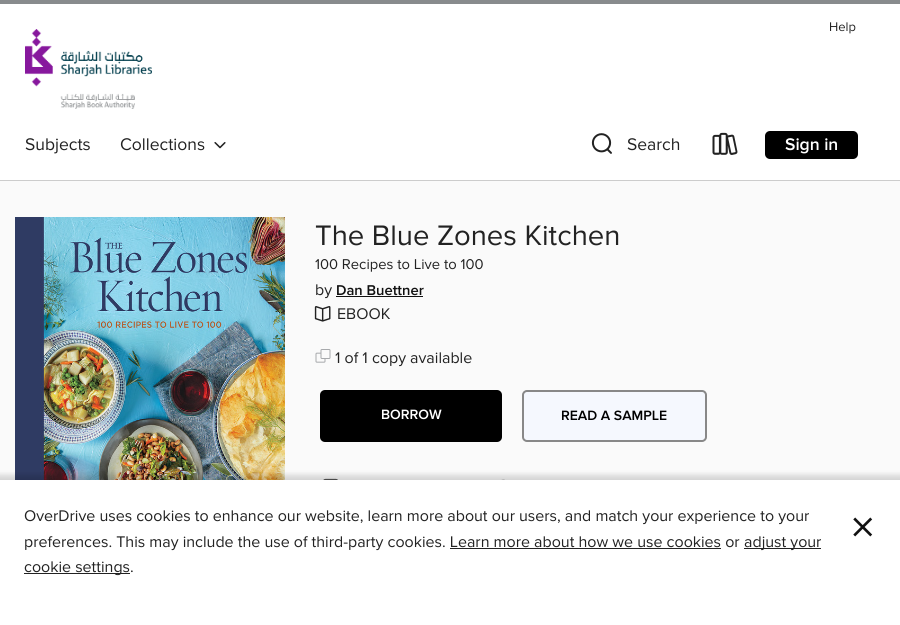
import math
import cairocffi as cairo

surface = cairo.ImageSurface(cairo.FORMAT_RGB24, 900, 625)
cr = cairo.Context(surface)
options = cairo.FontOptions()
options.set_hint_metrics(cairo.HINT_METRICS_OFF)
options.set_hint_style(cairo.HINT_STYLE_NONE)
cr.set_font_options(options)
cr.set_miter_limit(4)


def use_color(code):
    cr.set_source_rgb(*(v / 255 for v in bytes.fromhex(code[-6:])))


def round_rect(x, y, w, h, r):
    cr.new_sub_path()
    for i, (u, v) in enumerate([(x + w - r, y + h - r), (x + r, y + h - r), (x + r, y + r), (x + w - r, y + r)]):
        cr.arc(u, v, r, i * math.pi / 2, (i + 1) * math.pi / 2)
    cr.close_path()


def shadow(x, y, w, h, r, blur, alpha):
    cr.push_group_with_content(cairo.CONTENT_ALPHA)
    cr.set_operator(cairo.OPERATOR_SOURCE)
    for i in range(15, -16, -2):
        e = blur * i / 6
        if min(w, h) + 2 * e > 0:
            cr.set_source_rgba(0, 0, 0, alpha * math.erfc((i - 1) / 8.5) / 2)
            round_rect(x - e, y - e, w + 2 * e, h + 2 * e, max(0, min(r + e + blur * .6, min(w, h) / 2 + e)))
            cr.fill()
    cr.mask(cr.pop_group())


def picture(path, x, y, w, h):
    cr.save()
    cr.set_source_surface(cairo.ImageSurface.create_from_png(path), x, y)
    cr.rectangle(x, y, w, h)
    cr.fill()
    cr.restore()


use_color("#fafafa")
cr.paint()
use_color("#ffffff")
cr.rectangle(0, 4, 900, 176)
cr.fill()
use_color("#888b8d")
cr.rectangle(0, 0, 900, 4)
cr.fill()
use_color("#cccccc")
cr.rectangle(0, 180, 900, 1)
cr.fill()
picture("img1.png", 25, 29, 127, 80)
cr.select_font_face("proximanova")
cr.set_font_size(13)
use_color("#222222")
cr.move_to(829, 31)
cr.show_text("Help")
cr.set_font_size(17.5)
cr.move_to(25, 150)
cr.show_text("Subjects")
cr.move_to(120, 150)
cr.show_text("Collections")
picture("img2.png", 214, 142, 12, 7)
picture("img3.png", 591, 133, 21, 21)
cr.move_to(627, 150)
cr.show_text("Search")
picture("img4.png", 712, 132, 26, 23)
use_color("#000000")
round_rect(765, 131, 93, 28, 5)
cr.fill()
cr.select_font_face("Proxima Nova SemiBold")
use_color("#ffffff")
cr.move_to(785, 150)
cr.show_text("Sign in")
use_color("#2f3b63")
cr.rectangle(15, 217, 25, 263)
cr.fill()
picture("img5.png", 40, 217, 245, 263)
cr.select_font_face("proximanova")
cr.set_font_size(29.25)
use_color("#222222")
cr.move_to(315, 245)
cr.show_text("The Blue Zones Kitchen")
cr.set_font_size(14.75)
cr.move_to(315, 269)
cr.show_text("100 Recipes to Live to 100")
cr.set_font_size(16)
cr.move_to(315, 295)
cr.show_text("by")
cr.select_font_face("Proxima Nova SemiBold")
cr.set_font_size(14.75)
use_color("#111111")
cr.move_to(336, 295)
cr.show_text("Dan Buettner")
cr.rectangle(336, 296, 87, 1)
cr.fill()
picture("img6.png", 314, 306, 17, 16)
cr.select_font_face("proximanova")
cr.set_font_size(16)
use_color("#222222")
cr.move_to(337, 319)
cr.show_text("EBOOK")
picture("img7.png", 315, 349, 16, 14)
cr.move_to(335, 363)
cr.show_text("1 of 1 copy available")
use_color("#000000")
round_rect(320, 390, 182, 52, 5)
cr.fill()
cr.select_font_face("Proxima Nova SemiBold")
cr.set_font_size(14)
use_color("#ffffff")
cr.move_to(381, 419)
cr.show_text("BORROW")
use_color("#f5f8fe")
round_rect(523, 391, 183, 50, 4)
cr.fill_preserve()
use_color("#888888")
cr.stroke()
use_color("#000000")
cr.move_to(561, 420)
cr.show_text("READ A SAMPLE")
picture("img8.png", 323, 478, 15, 2)
picture("img9.png", 501, 479, 4, 1)
use_color("#000000")
shadow(-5, 475, 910, 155, 0, 2.5, 0.15)
use_color("#ffffff")
cr.rectangle(0, 480, 900, 145)
cr.fill()
cr.select_font_face("proximanova")
cr.set_font_size(16)
use_color("#222222")
cr.move_to(24, 521)
cr.show_text("OverDrive uses cookies to enhance our website, learn more about our users, and match your experience to your")
cr.move_to(24, 547)
cr.show_text("preferences. This may include the use of third-party cookies. Learn more about how we use cookies or")
cr.rectangle(450, 548, 271, 1)
cr.fill()
cr.rectangle(744, 548, 77, 1)
cr.fill()
cr.move_to(744, 547)
cr.show_text("adjust your")
cr.rectangle(24, 573, 106, 1)
cr.fill()
cr.move_to(24, 572)
cr.show_text("cookie settings.")
cr.set_font_size(51)
use_color("#111111")
cr.move_to(850, 544)
cr.show_text("×")
surface.write_to_png("result.png")
